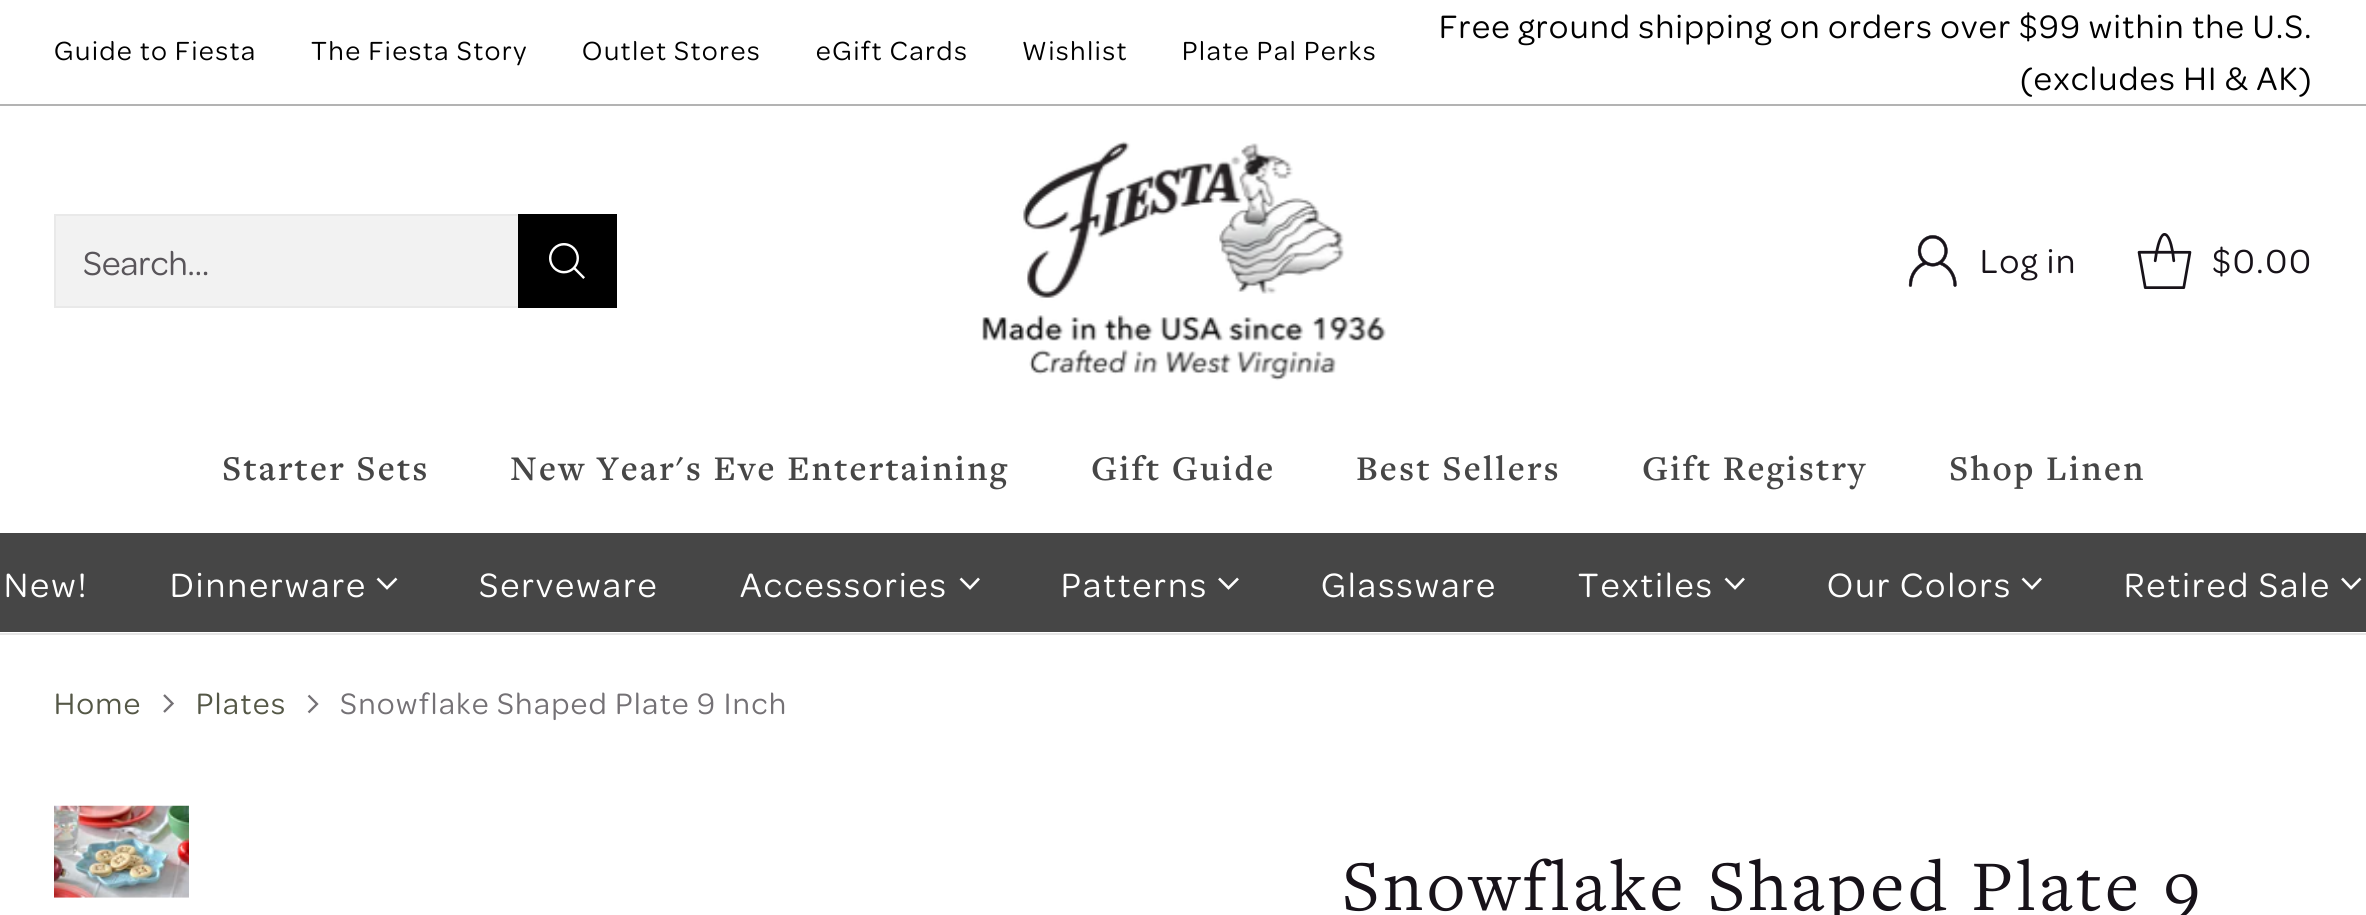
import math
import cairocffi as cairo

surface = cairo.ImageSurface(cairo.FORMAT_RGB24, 2366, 915)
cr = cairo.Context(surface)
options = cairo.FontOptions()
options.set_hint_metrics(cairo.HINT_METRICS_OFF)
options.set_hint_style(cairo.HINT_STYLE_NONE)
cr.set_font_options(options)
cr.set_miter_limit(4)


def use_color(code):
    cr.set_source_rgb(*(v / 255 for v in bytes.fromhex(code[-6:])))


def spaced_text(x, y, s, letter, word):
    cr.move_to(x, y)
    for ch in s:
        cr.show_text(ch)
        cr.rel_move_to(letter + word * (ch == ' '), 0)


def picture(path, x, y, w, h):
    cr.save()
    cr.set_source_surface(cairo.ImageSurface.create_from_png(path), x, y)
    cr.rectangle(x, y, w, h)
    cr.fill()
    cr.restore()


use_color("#ffffff")
cr.paint()
use_color("#b3b3b3")
cr.rectangle(0, 104, 2366, 2)
cr.fill()
cr.select_font_face("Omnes")
cr.set_font_size(28)
use_color("#000000")
spaced_text(54, 60, "Guide to Fiesta", 1.75, 0)
spaced_text(311, 60, "The Fiesta Story", 1.75, 0)
spaced_text(582, 60, "Outlet Stores", 1.75, 0)
spaced_text(816, 60, "eGift Cards", 1.75, 0)
spaced_text(1022, 60, "Wishlist", 1.75, 0)
spaced_text(1182, 60, "Plate Pal Perks", 1.75, 0)
cr.set_font_size(34.6)
spaced_text(1439, 38, "Free ground shipping on orders over $99 within the U.S.", 1.48, 0)
spaced_text(2020, 90, "(excludes HI & AK)", 1.48, 0)
cr.rectangle(-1, 415, 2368, 219)
use_color("#e6e6e6")
cr.stroke()
use_color("#ffffff")
cr.rectangle(0, 414, 2366, 2)
cr.fill()
cr.rectangle(55, 215, 561, 92)
use_color("#e9e9e9")
cr.stroke()
use_color("#f2f2f2")
cr.rectangle(56, 216, 462, 90)
cr.fill()
cr.set_font_size(35.5)
use_color("#59555a")
cr.move_to(83, 275)
cr.show_text("Search…")
use_color("#000000")
cr.rectangle(518, 214, 99, 94)
cr.fill()
picture("img1.png", 549, 243, 36, 36)
picture("img2.png", 982, 141, 404, 240)
picture("img3.png", 1908, 235, 49, 52)
use_color("#171219")
spaced_text(1980, 273, "Log in", 1.75, 0)
picture("img4.png", 2137, 233, 55, 56)
spaced_text(2212, 273, "$0.00", 1.75, 0)
use_color("#464646")
cr.rectangle(0, 533, 2366, 99)
cr.fill()
cr.select_font_face("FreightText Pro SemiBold")
cr.set_font_size(36)
spaced_text(222, 480, "Starter Sets", 2.25, 0)
spaced_text(510, 480, "New Year's Eve Entertaining", 2.25, 0)
spaced_text(1091, 480, "Gift Guide", 2.25, 0)
spaced_text(1356, 480, "Best Sellers", 2.25, 0)
spaced_text(1642, 480, "Gift Registry", 2.25, 0)
spaced_text(1949, 480, "Shop Linen", 2.25, 0)
cr.select_font_face("Omnes")
use_color("#ffffff")
spaced_text(4, 597, "New!", 2.25, 0)
spaced_text(170, 597, "Dinnerware", 2.25, 0)
cr.new_path()
cr.move_to(377.5, 578.5)
cr.line_to(387, 588)
cr.line_to(396.5, 578.5)
cr.set_line_width(2.6)
cr.stroke()
spaced_text(479, 597, "Serveware", 2.25, 0)
spaced_text(740, 597, "Accessories", 2.25, 0)
cr.new_path()
cr.move_to(960.5, 578.5)
cr.line_to(970, 588)
cr.line_to(979, 578.5)
cr.stroke()
spaced_text(1061, 597, "Patterns", 2.25, 0)
cr.new_path()
cr.move_to(1219, 578.5)
cr.line_to(1228.5, 588)
cr.line_to(1238, 578.5)
cr.stroke()
spaced_text(1321, 597, "Glassware", 2.25, 0)
spaced_text(1578, 597, "Textiles", 2.25, 0)
cr.new_path()
cr.move_to(1725.5, 578.5)
cr.line_to(1735, 588)
cr.line_to(1744, 578.5)
cr.stroke()
spaced_text(1827, 597, "Our Colors", 2.25, 0)
cr.new_path()
cr.move_to(2022.5, 578.5)
cr.line_to(2032, 588)
cr.line_to(2041, 578.5)
cr.stroke()
spaced_text(2124, 597, "Retired Sale", 2.25, 0)
cr.new_path()
cr.move_to(2342, 578.5)
cr.line_to(2351, 588)
cr.line_to(2360.5, 578.5)
cr.stroke()
cr.set_font_size(31.5)
use_color("#545746")
spaced_text(54, 714, "Home", 1.6, 0)
cr.new_path()
cr.move_to(164, 712)
cr.line_to(172.5, 703.5)
cr.line_to(164, 695)
use_color("#747175")
cr.set_line_width(2.3)
cr.stroke()
use_color("#545746")
spaced_text(196, 714, "Plates", 1.6, 0)
cr.new_path()
cr.move_to(308.5, 712.5)
cr.line_to(317, 704)
cr.line_to(308.5, 695.5)
use_color("#747175")
cr.stroke()
spaced_text(340, 714, "Snowflake Shaped Plate 9 Inch", 1.6, 0)
picture("img5.png", 54, 805, 135, 93)
cr.select_font_face("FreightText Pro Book")
cr.set_font_size(73.9)
use_color("#171219")
spaced_text(1342, 910, "Snowflake Shaped Plate 9", 3.7, 0)
surface.write_to_png("result.png")
